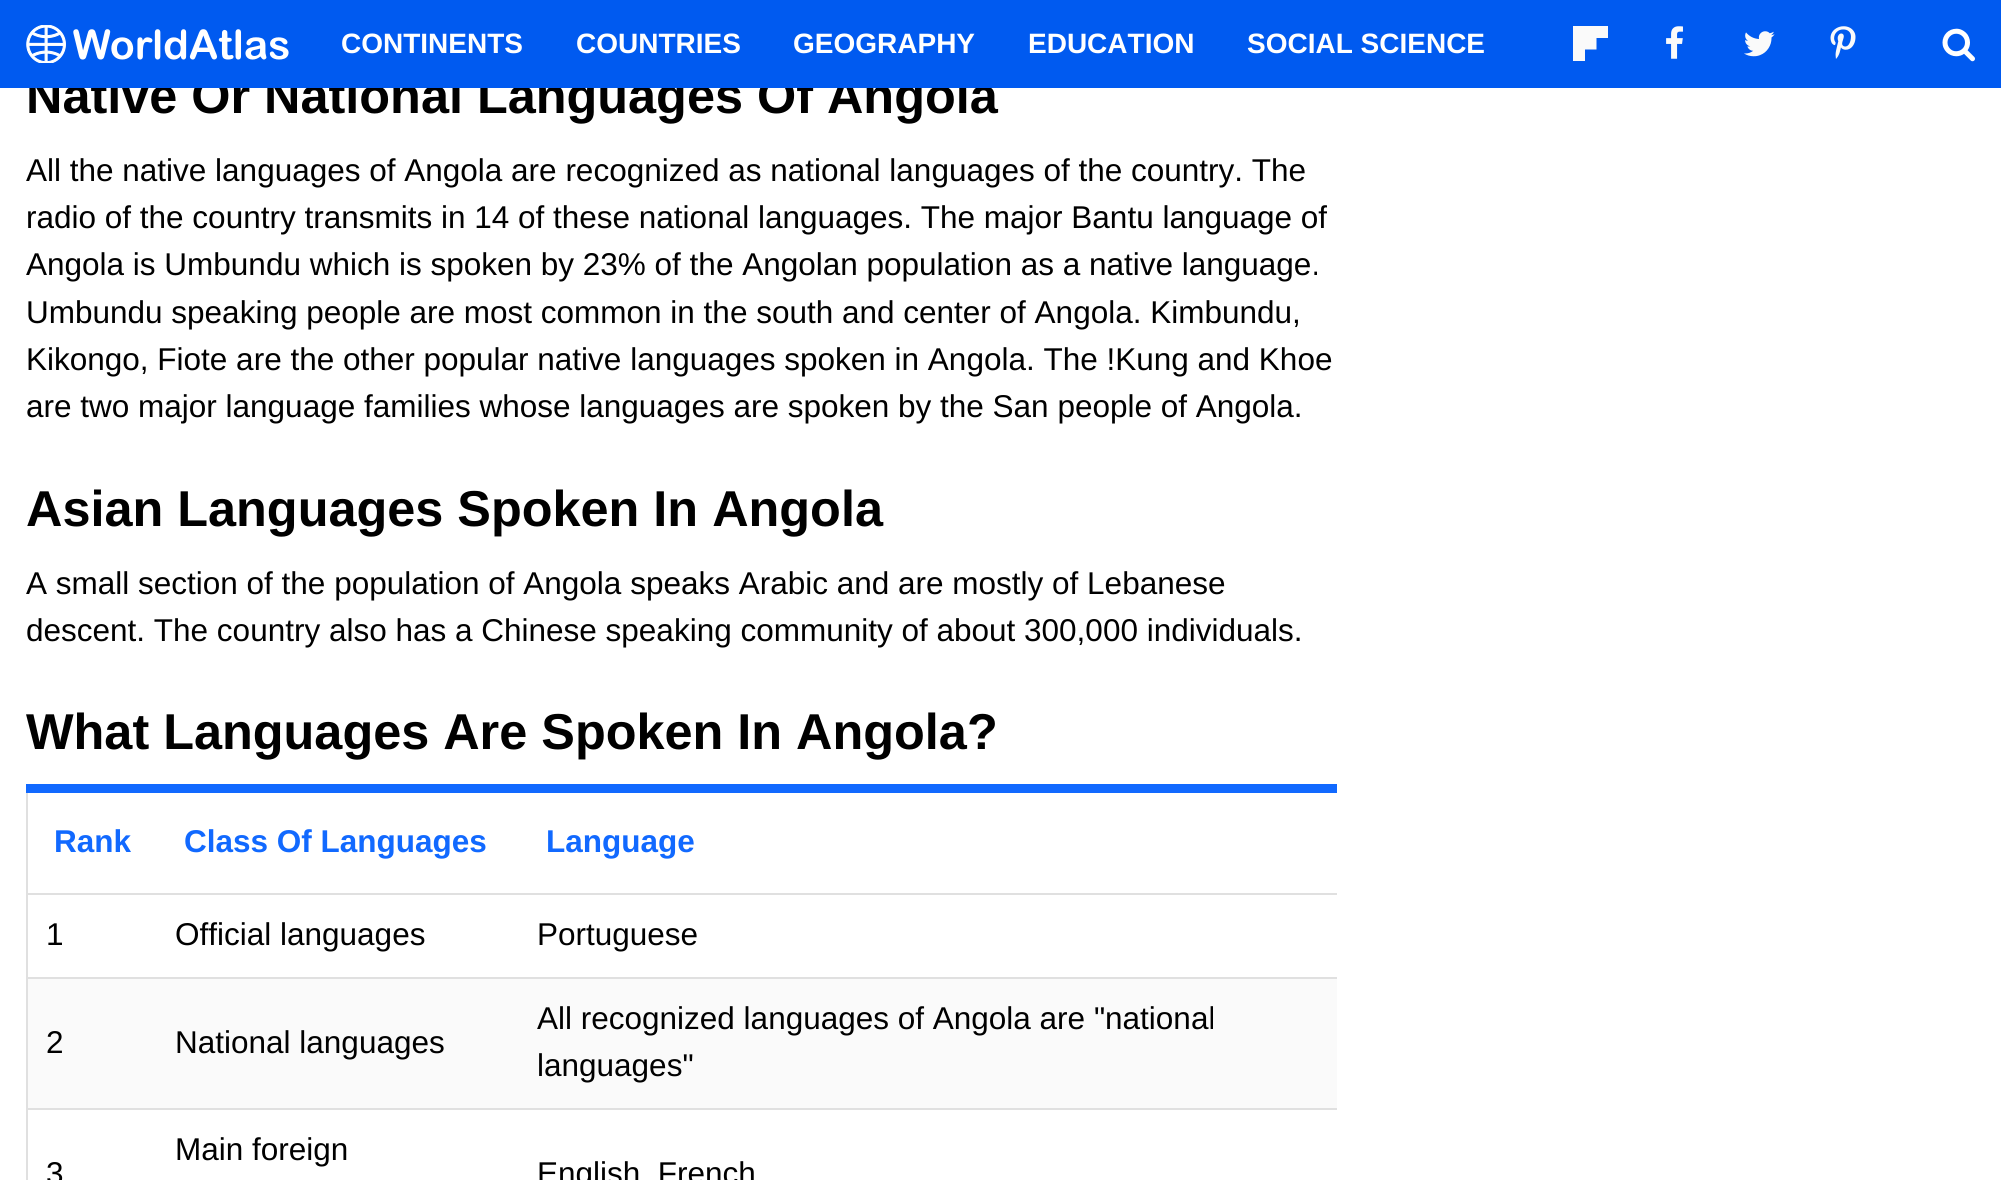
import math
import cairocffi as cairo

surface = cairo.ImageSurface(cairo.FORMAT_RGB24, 2001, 1180)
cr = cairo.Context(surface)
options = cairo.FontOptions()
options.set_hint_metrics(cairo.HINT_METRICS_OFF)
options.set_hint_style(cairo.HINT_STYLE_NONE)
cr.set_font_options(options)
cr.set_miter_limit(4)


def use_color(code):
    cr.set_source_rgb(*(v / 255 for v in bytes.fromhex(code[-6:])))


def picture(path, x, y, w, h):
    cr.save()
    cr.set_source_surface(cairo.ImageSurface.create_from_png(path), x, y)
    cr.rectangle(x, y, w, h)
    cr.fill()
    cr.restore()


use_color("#ffffff")
cr.paint()
cr.select_font_face("Liberation Sans", cairo.FONT_SLANT_NORMAL, cairo.FONT_WEIGHT_BOLD)
cr.set_font_size(50.4)
use_color("#000000")
cr.move_to(26, 113)
cr.show_text("Native Or National Languages Of Angola")
use_color("#005af0")
cr.rectangle(0, 0, 2001, 88)
cr.fill()
picture("img1.png", 26, 25, 263, 38)
cr.set_font_size(28)
use_color("#ffffff")
cr.move_to(341, 53)
cr.show_text("CONTINENTS")
cr.move_to(576, 53)
cr.show_text("COUNTRIES")
cr.move_to(793, 53)
cr.show_text("GEOGRAPHY")
cr.move_to(1028, 53)
cr.show_text("EDUCATION")
cr.move_to(1247, 53)
cr.show_text("SOCIAL SCIENCE")
use_color("#fafafa")
cr.new_path()
cr.move_to(1608, 26)
cr.line_to(1608, 38)
cr.line_to(1596.5, 38)
cr.line_to(1596.5, 49.5)
cr.line_to(1585, 49.5)
cr.line_to(1585, 61)
cr.line_to(1573, 61)
cr.line_to(1573, 26)
cr.close_path()
cr.fill()
picture("img2.png", 1666, 26, 17, 33)
picture("img3.png", 1744, 31, 31, 26)
picture("img4.png", 1830, 26, 26, 33)
picture("img5.png", 1942, 28, 33, 34)
cr.select_font_face("Liberation Sans")
cr.set_font_size(31.5)
use_color("#000000")
cr.move_to(26, 181)
cr.show_text("All the native languages of Angola are recognized as national languages of the country. The")
cr.move_to(26, 228)
cr.show_text("radio of the country transmits in 14 of these national languages. The major Bantu language of")
cr.move_to(26, 275)
cr.show_text("Angola is Umbundu which is spoken by 23% of the Angolan population as a native language.")
cr.move_to(26, 323)
cr.show_text("Umbundu speaking people are most common in the south and center of Angola. Kimbundu,")
cr.move_to(26, 370)
cr.show_text("Kikongo, Fiote are the other popular native languages spoken in Angola. The !Kung and Khoe")
cr.move_to(26, 417)
cr.show_text("are two major language families whose languages are spoken by the San people of Angola.")
cr.select_font_face("Liberation Sans", cairo.FONT_SLANT_NORMAL, cairo.FONT_WEIGHT_BOLD)
cr.set_font_size(50.4)
cr.move_to(26, 526)
cr.show_text("Asian Languages Spoken In Angola")
cr.select_font_face("Liberation Sans")
cr.set_font_size(31.5)
cr.move_to(26, 594)
cr.show_text("A small section of the population of Angola speaks Arabic and are mostly of Lebanese")
cr.move_to(26, 641)
cr.show_text("descent. The country also has a Chinese speaking community of about 300,000 individuals.")
cr.select_font_face("Liberation Sans", cairo.FONT_SLANT_NORMAL, cairo.FONT_WEIGHT_BOLD)
cr.set_font_size(50.4)
cr.move_to(26, 749)
cr.show_text("What Languages Are Spoken In Angola?")
use_color("#e0e0e0")
cr.rectangle(26, 793, 2, 387)
cr.fill()
use_color("#1169ff")
cr.rectangle(26, 784, 1311, 9)
cr.fill()
cr.set_font_size(31.5)
cr.move_to(54, 852)
cr.show_text("Rank")
cr.move_to(184, 852)
cr.show_text("Class Of Languages")
cr.move_to(546, 852)
cr.show_text("Language")
cr.select_font_face("Liberation Sans")
use_color("#000000")
cr.move_to(46, 945)
cr.show_text("1")
cr.move_to(175, 945)
cr.show_text("Official languages")
use_color("#e0e0e0")
cr.rectangle(26, 893, 1311, 2)
cr.fill()
use_color("#000000")
cr.move_to(537, 945)
cr.show_text("Portuguese")
use_color("#fafafa")
cr.rectangle(28, 979, 1309, 129)
cr.fill()
use_color("#000000")
cr.move_to(46, 1053)
cr.show_text("2")
cr.move_to(175, 1053)
cr.show_text("National languages")
use_color("#e0e0e0")
cr.rectangle(26, 977, 1311, 2)
cr.fill()
use_color("#000000")
cr.move_to(537, 1029)
cr.show_text("All recognized languages of Angola are \"national")
cr.move_to(537, 1076)
cr.show_text("languages\"")
cr.move_to(175, 1160)
cr.show_text("Main foreign")
cr.move_to(46, 1184)
cr.show_text("3")
use_color("#e0e0e0")
cr.rectangle(26, 1108, 1311, 2)
cr.fill()
use_color("#000000")
cr.move_to(537, 1184)
cr.show_text("English, French")
surface.write_to_png("result.png")
